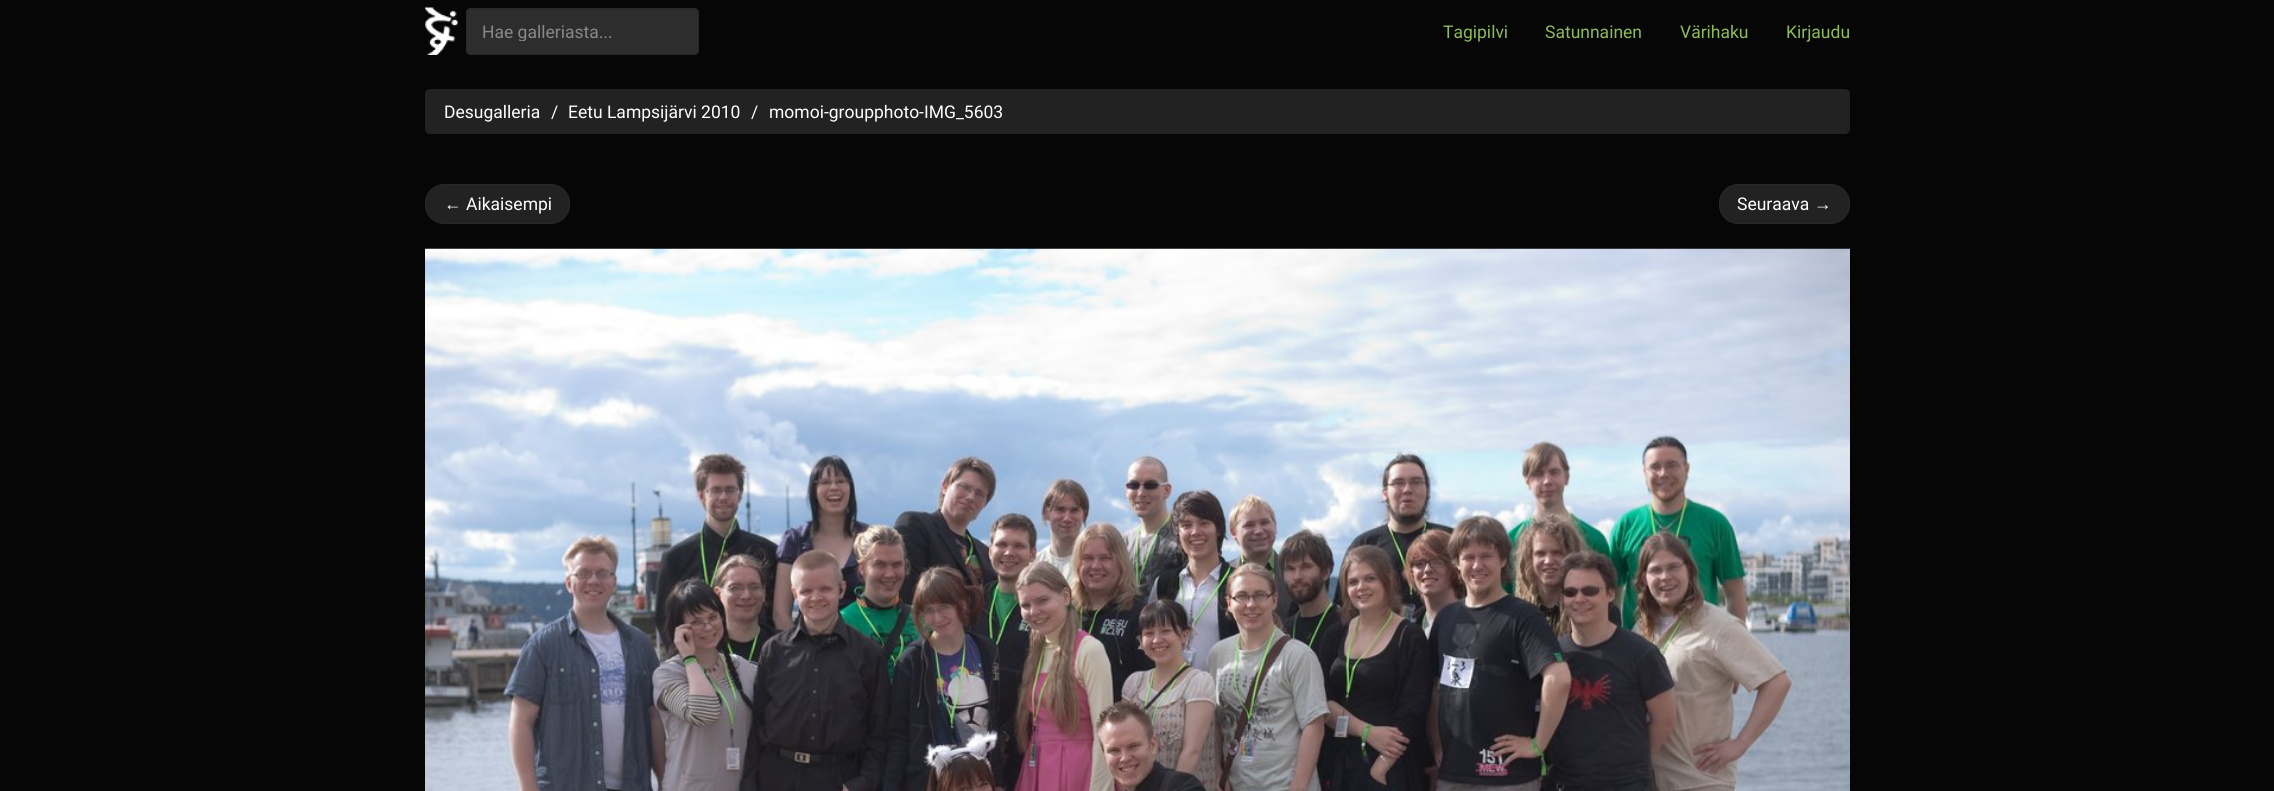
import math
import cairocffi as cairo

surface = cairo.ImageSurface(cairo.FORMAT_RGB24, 2274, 791)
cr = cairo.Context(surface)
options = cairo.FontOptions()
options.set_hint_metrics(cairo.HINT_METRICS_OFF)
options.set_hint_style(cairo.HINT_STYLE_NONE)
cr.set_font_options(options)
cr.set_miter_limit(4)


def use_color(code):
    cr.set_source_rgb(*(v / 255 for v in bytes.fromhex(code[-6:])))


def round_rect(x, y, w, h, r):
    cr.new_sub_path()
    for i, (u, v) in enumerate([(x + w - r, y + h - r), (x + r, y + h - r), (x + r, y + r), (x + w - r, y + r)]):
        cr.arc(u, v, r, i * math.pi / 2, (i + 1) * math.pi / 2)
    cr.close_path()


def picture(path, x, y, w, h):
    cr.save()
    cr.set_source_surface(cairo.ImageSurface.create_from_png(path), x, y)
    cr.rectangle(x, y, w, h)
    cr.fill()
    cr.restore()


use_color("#060606")
cr.paint()
picture("img1.png", 425, 7, 33, 48)
use_color("#2d2d2d")
round_rect(466, 8, 233, 47, 5)
cr.fill()
use_color("#2a2a2a")
cr.new_path()
cr.move_to(471, 10)
cr.line_to(694, 10)
cr.curve_to(696, 10, 698, 12, 698, 14)
cr.curve_to(698, 11, 697, 9, 694, 9)
cr.line_to(472, 9)
cr.curve_to(469, 9, 468, 11, 468, 14)
cr.curve_to(468, 12, 469, 10, 471, 10)
cr.close_path()
cr.fill()
round_rect(466.5, 8.5, 232, 46, 4.5)
use_color("#282828")
cr.set_line_width(1)
cr.stroke()
cr.save()
cr.rectangle(483, 21, 200, 20)
cr.clip()
cr.select_font_face("Roboto")
cr.set_font_size(17.5)
use_color("#888888")
cr.move_to(482, 38)
cr.show_text("Hae galleriasta...")
cr.restore()
cr.select_font_face("Roboto")
cr.set_font_size(17.5)
use_color("#8fba58")
cr.move_to(1443, 38)
cr.show_text("Tagipilvi")
cr.move_to(1545, 38)
cr.show_text("Satunnainen")
cr.move_to(1680, 38)
cr.show_text("Värihaku")
cr.move_to(1786, 38)
cr.show_text("Kirjaudu")
use_color("#222222")
round_rect(425, 89, 1425, 45, 5)
cr.fill()
use_color("#ffffff")
cr.move_to(444, 118)
cr.show_text("Desugalleria")
cr.move_to(551, 118)
cr.show_text("/")
cr.move_to(568, 118)
cr.show_text("Eetu Lampsijärvi 2010")
cr.move_to(751, 118)
cr.show_text("/")
cr.move_to(769, 118)
cr.show_text("momoi-groupphoto-IMG_5603")
use_color("#222222")
round_rect(425.5, 184.5, 144, 39, 18.5)
cr.fill_preserve()
use_color("#282828")
cr.stroke()
cr.select_font_face("Liberation Sans")
use_color("#ffffff")
cr.move_to(444, 210)
cr.show_text("←")
cr.select_font_face("Roboto")
cr.move_to(466, 210)
cr.show_text("Aikaisempi")
use_color("#222222")
round_rect(1719.5, 184.5, 130, 39, 18.5)
cr.fill_preserve()
use_color("#282828")
cr.stroke()
use_color("#ffffff")
cr.move_to(1737, 210)
cr.show_text("Seuraava")
cr.select_font_face("Liberation Sans")
cr.move_to(1814, 210)
cr.show_text("→")
picture("img2.png", 425, 248, 1425, 543)
surface.write_to_png("result.png")
